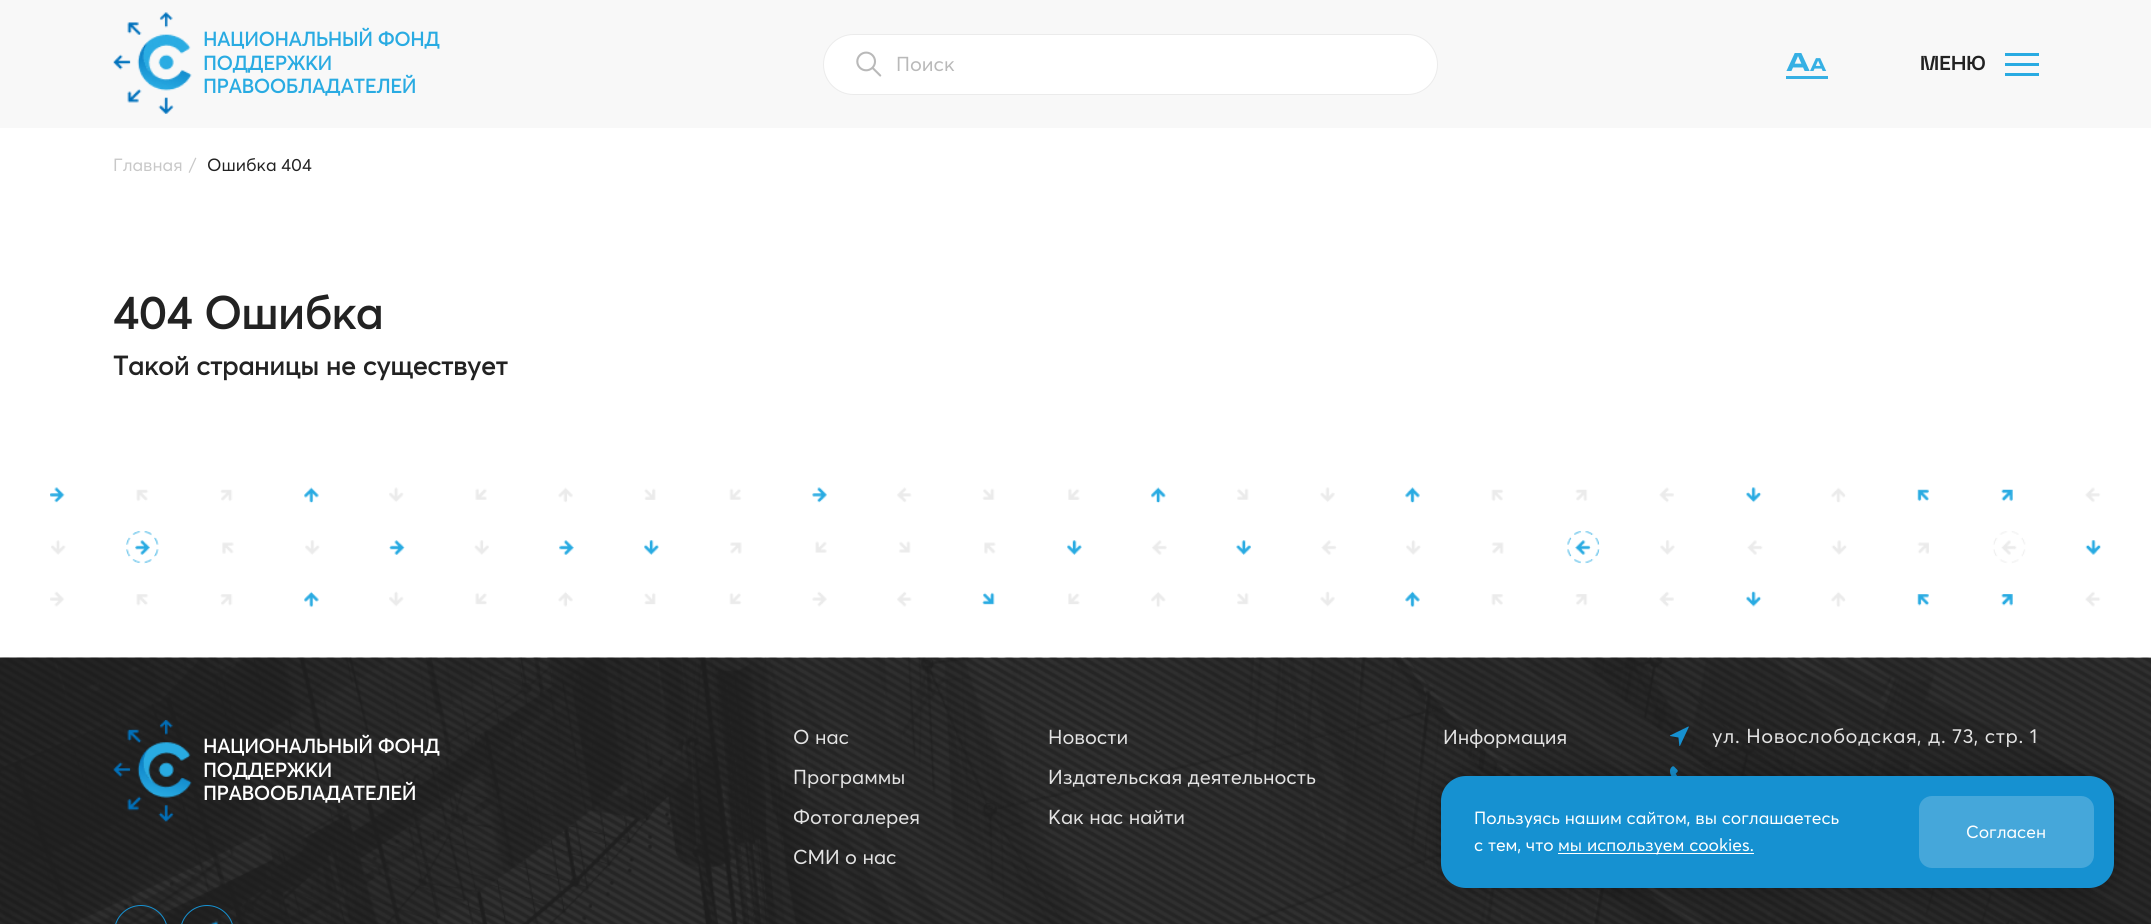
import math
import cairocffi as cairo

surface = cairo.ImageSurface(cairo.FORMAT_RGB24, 2151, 924)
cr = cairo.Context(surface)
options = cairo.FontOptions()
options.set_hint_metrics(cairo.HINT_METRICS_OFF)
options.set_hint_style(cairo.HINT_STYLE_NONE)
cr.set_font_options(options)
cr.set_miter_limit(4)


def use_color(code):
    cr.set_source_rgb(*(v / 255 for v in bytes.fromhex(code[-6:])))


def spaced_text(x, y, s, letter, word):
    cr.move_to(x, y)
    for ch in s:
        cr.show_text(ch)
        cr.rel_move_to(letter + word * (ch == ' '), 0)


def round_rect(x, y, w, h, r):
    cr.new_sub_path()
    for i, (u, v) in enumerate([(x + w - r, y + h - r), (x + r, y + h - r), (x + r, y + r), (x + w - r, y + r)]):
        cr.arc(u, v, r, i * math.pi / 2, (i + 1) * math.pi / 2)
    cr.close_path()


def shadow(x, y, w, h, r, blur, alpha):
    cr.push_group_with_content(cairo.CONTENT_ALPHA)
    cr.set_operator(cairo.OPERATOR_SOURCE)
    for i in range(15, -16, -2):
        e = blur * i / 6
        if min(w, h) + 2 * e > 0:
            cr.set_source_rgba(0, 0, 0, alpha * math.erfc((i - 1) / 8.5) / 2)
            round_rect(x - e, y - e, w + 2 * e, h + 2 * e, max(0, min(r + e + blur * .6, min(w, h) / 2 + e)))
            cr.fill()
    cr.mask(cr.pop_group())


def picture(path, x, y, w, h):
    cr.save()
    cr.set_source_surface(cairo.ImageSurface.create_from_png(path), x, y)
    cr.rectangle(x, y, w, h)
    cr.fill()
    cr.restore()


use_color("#ffffff")
cr.paint()
use_color("#f8f8f8")
cr.rectangle(0, 0, 2151, 128)
cr.fill()
picture("img1.png", 113, 12, 79, 102)
cr.select_font_face("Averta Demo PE", cairo.FONT_SLANT_NORMAL, cairo.FONT_WEIGHT_BOLD)
cr.set_font_size(19.4)
use_color("#29abe2")
cr.move_to(203, 46)
cr.show_text("НАЦИОНАЛЬНЫЙ ФОНД")
cr.move_to(203, 70)
cr.show_text("ПОДДЕРЖКИ")
cr.move_to(203, 93)
cr.show_text("ПРАВООБЛАДАТЕЛЕЙ")
use_color("#ffffff")
round_rect(823.5, 34.5, 614, 60, 30)
cr.fill_preserve()
use_color("#ebebeb")
cr.set_line_width(1)
cr.stroke()
picture("img2.png", 856, 51, 26, 26)
cr.select_font_face("Averta Demo PE")
cr.set_font_size(20)
use_color("#b9b9b9")
cr.move_to(896, 71)
cr.show_text("Поиск")
use_color("#36b0e4")
cr.rectangle(1786, 76, 42, 3)
cr.fill()
picture("img3.png", 1786, 53, 41, 18)
cr.select_font_face("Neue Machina", cairo.FONT_SLANT_NORMAL, cairo.FONT_WEIGHT_BOLD)
use_color("#222222")
cr.move_to(1920, 70)
cr.show_text("МЕНЮ")
use_color("#29abe2")
cr.rectangle(2005, 53, 34, 3)
cr.fill()
cr.rectangle(2005, 63, 34, 3)
cr.fill()
cr.rectangle(2005, 73, 34, 3)
cr.fill()
cr.select_font_face("Averta Demo PE")
cr.set_font_size(17.5)
use_color("#c8c8c8")
cr.move_to(113, 171)
cr.show_text("Главная")
cr.move_to(189, 171)
cr.show_text("/")
use_color("#222222")
cr.move_to(207, 171)
cr.show_text("Ошибка 404")
cr.select_font_face("Averta Demo PE", cairo.FONT_SLANT_NORMAL, cairo.FONT_WEIGHT_BOLD)
cr.set_font_size(45)
cr.move_to(113, 329)
cr.show_text("404 Ошибка")
cr.set_font_size(26.3)
cr.move_to(113, 375)
cr.show_text("Такой страницы не существует")
picture("img4.png", 50, 487, 2051, 121)
picture("img5.png", 0, 657, 2151, 267)
picture("img6.png", 113, 720, 79, 102)
cr.set_font_size(19.4)
use_color("#ffffff")
cr.move_to(203, 753)
cr.show_text("НАЦИОНАЛЬНЫЙ ФОНД")
cr.move_to(203, 777)
cr.show_text("ПОДДЕРЖКИ")
cr.move_to(203, 800)
cr.show_text("ПРАВООБЛАДАТЕЛЕЙ")
cr.select_font_face("Averta Demo PE")
cr.set_font_size(20)
use_color("#e3e3e3")
cr.move_to(793, 744)
cr.show_text("О нас")
cr.move_to(793, 784)
cr.show_text("Программы")
cr.move_to(793, 824)
cr.show_text("Фотогалерея")
cr.move_to(793, 864)
cr.show_text("СМИ о нас")
cr.move_to(1048, 744)
cr.show_text("Новости")
cr.move_to(1048, 784)
cr.show_text("Издательская деятельность")
cr.move_to(1048, 824)
cr.show_text("Как нас найти")
cr.move_to(1443, 744)
cr.show_text("Информация")
picture("img7.png", 1670, 726, 19, 20)
spaced_text(1712, 743, "ул. Новослободская, д. 73, стр. 1", 0.6, 0)
picture("img8.png", 1670, 766, 8, 10)
round_rect(114.5, 905.5, 53, 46, 26.5)
use_color("#1691d1")
cr.stroke()
round_rect(180.5, 905.5, 53, 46, 26.5)
cr.stroke()
picture("img9.png", 209, 921, 9, 3)
use_color("#000000")
shadow(1441, 776, 673, 112, 25, 10.5, 0.28)
use_color("#1691d1")
round_rect(1441, 776, 673, 112, 25)
cr.fill()
cr.set_font_size(17.5)
use_color("#ffffff")
cr.move_to(1474, 824)
cr.show_text("Пользуясь нашим сайтом, вы соглашаетесь")
cr.move_to(1474, 851)
cr.show_text("с тем, что")
cr.rectangle(1558, 853, 196, 1)
cr.fill()
cr.move_to(1558, 851)
cr.show_text("мы используем cookies.")
use_color("#45a7da")
round_rect(1919, 796, 175, 72, 13)
cr.fill()
use_color("#ffffff")
cr.move_to(1966, 838)
cr.show_text("Согласен")
surface.write_to_png("result.png")
